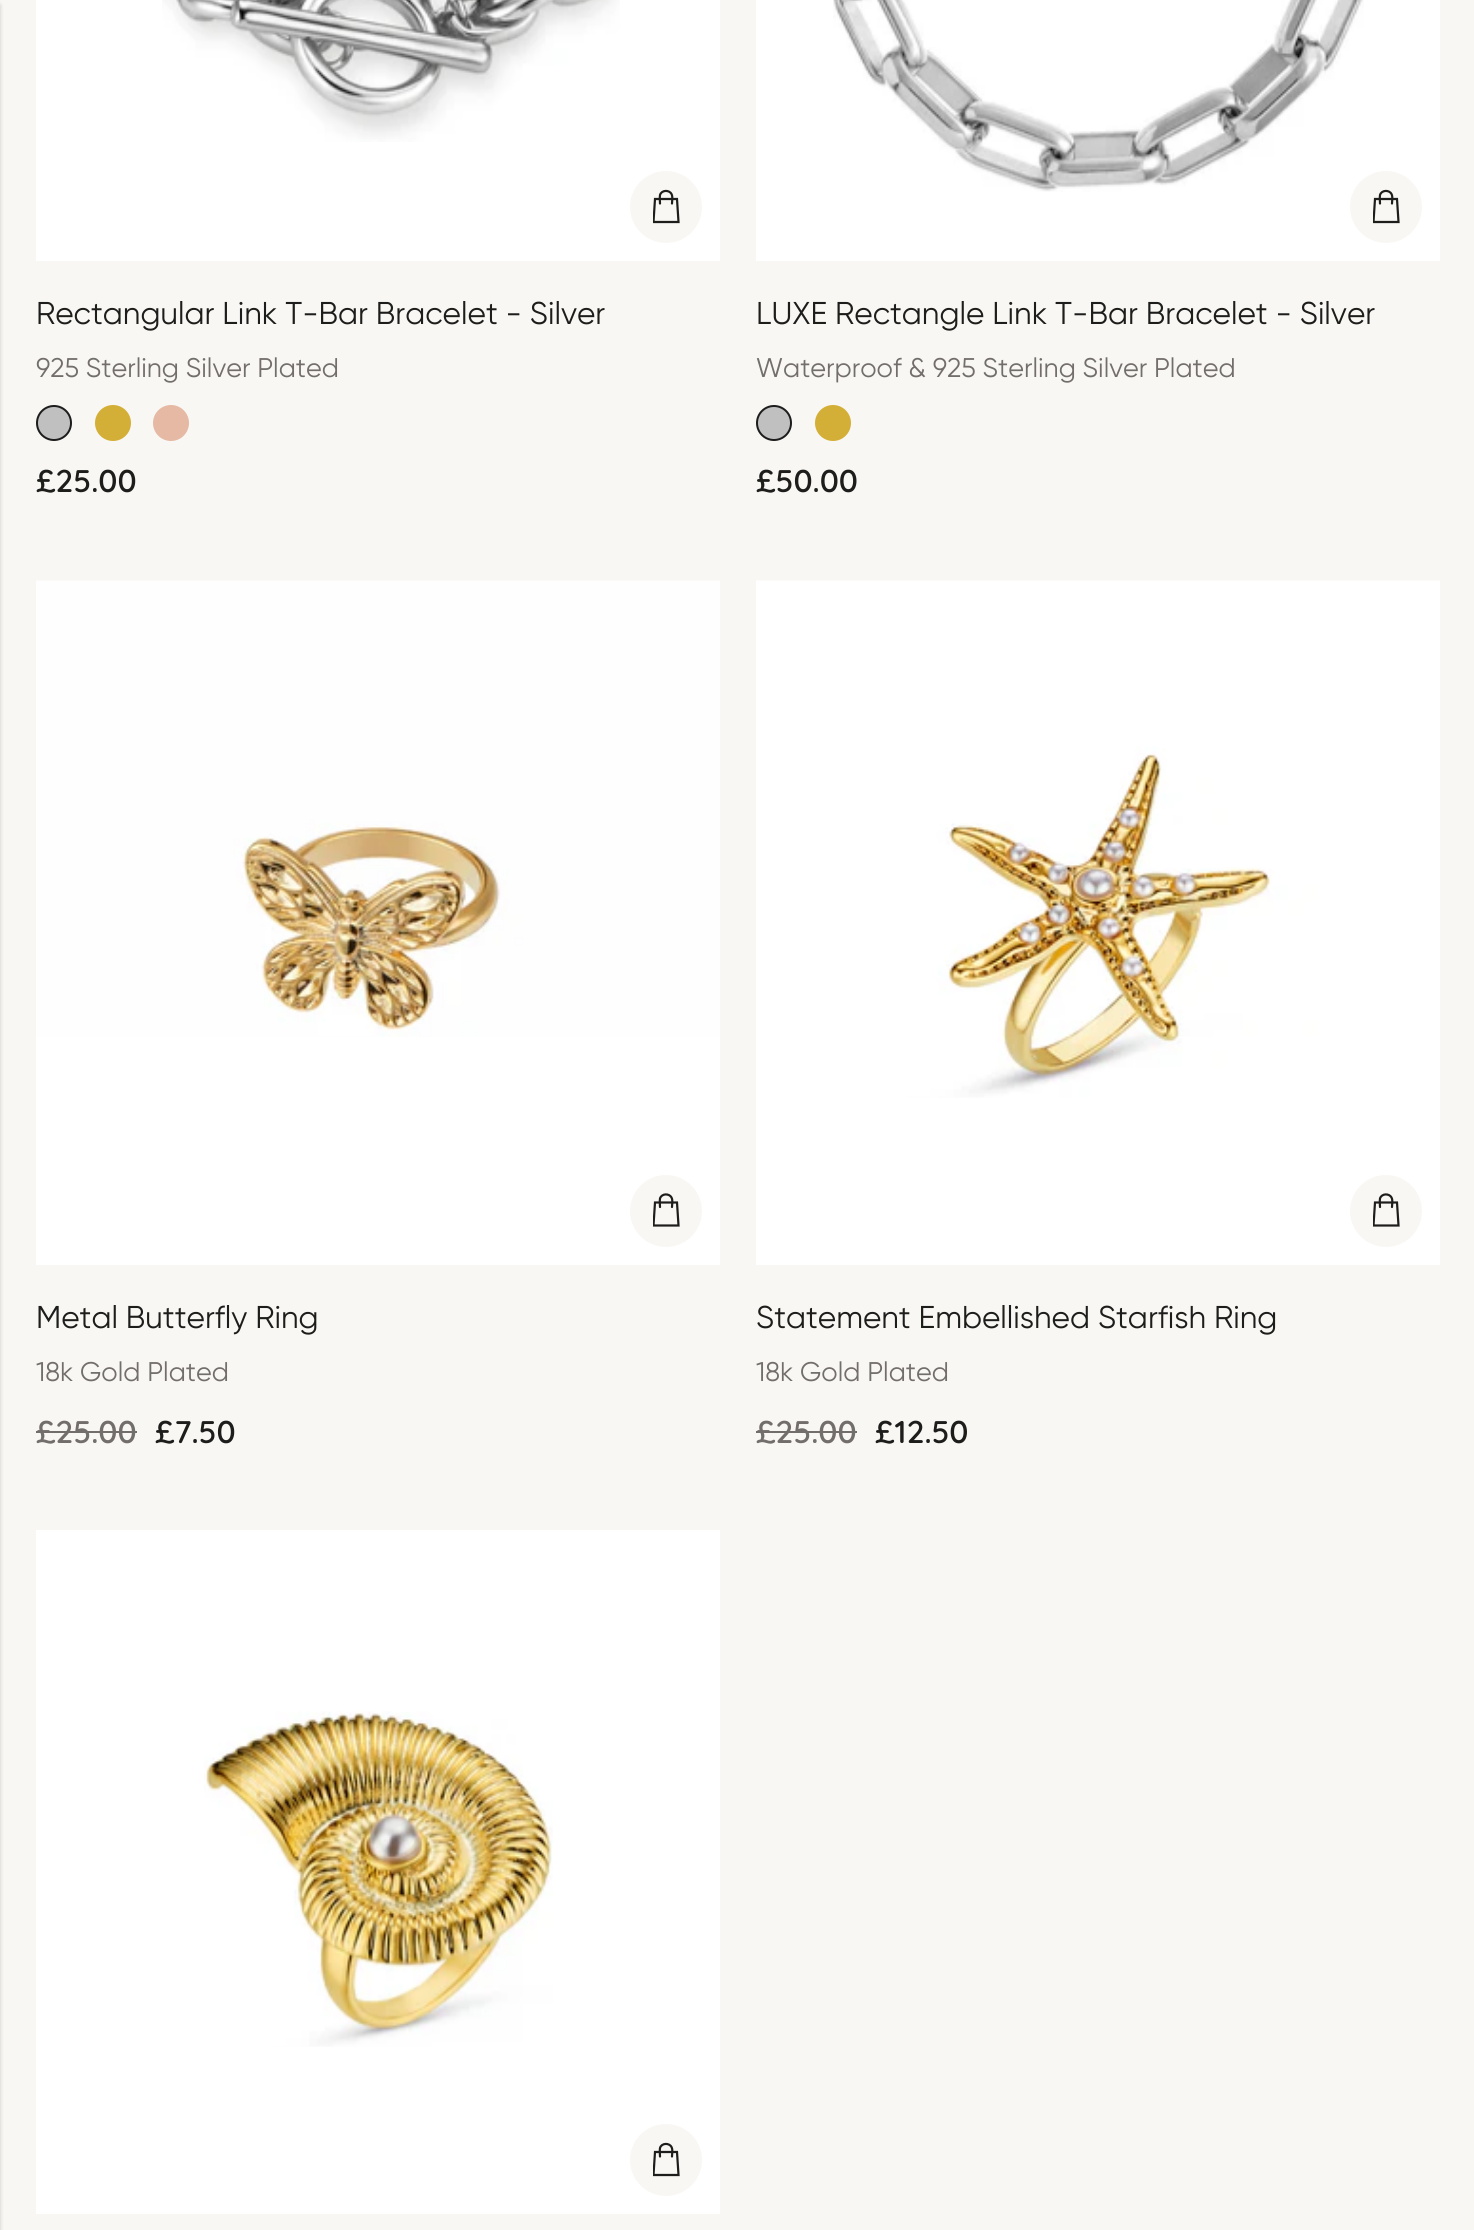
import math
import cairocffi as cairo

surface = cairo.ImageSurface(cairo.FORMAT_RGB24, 1474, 2230)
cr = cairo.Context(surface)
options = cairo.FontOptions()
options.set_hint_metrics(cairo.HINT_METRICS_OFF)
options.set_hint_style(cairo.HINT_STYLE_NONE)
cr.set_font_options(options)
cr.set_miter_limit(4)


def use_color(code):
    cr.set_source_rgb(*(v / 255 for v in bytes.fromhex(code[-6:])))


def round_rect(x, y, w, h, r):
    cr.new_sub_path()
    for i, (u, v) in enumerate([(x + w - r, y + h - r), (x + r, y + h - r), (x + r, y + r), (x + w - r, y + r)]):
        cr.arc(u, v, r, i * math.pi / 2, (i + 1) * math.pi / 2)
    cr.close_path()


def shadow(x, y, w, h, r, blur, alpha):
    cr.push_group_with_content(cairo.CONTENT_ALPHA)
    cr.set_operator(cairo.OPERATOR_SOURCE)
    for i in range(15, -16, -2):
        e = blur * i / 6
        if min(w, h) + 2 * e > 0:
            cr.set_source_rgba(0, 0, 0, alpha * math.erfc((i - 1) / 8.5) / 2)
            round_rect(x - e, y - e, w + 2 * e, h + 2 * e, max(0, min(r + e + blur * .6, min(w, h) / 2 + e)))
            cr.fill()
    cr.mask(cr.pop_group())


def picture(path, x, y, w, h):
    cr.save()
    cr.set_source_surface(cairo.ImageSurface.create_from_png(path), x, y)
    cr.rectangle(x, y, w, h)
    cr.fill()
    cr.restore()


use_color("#f9f7f4")
cr.paint()
use_color("#000000")
shadow(-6, 5, 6, 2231, 0, 2, 0.2)
use_color("#ffffff")
cr.rectangle(36, 0, 684, 261)
cr.fill()
picture("img1.png", 162, 0, 458, 142)
use_color("#f9f7f4")
cr.arc(666, 207, 36, 0, 2 * math.pi)
cr.fill()
cr.save()
cr.rectangle(653, 189, 27, 36)
cr.clip()
cr.new_path()
cr.move_to(653.5, 222)
cr.line_to(655, 199)
cr.line_to(677, 199)
cr.line_to(678.5, 222)
cr.close_path()
use_color("#1d1d1b")
cr.set_line_width(2.2)
cr.stroke()
cr.restore()
cr.new_path()
cr.move_to(660, 203.5)
cr.curve_to(660, 201, 659.5, 198, 660, 195)
cr.curve_to(661.5, 190, 669, 189.5, 671.5, 194)
cr.curve_to(673, 197, 672, 200.5, 672, 203.5)
use_color("#1d1d1b")
cr.set_line_width(2.2)
cr.set_line_cap(cairo.LINE_CAP_ROUND)
cr.stroke()
cr.select_font_face("Gilroy")
cr.set_font_size(31.5)
cr.move_to(36, 324)
cr.show_text("Rectangular Link T-Bar Bracelet - Silver")
cr.set_font_size(27)
use_color("#726e6b")
cr.move_to(36, 377)
cr.show_text("925 Sterling Silver Plated")
use_color("#c0c0c0")
cr.new_path()
cr.arc(54, 423, 17, 0, 2 * math.pi)
cr.fill_preserve()
use_color("#1d1d1d")
cr.set_line_width(2)
cr.set_line_cap(cairo.LINE_CAP_BUTT)
cr.stroke()
use_color("#d4af37")
cr.arc(113, 423, 18, 0, 2 * math.pi)
cr.fill()
use_color("#e5b9a3")
cr.arc(171, 423, 18, 0, 2 * math.pi)
cr.fill()
cr.select_font_face("Quicksand SemiBold")
cr.set_font_size(31.5)
use_color("#1d1d1b")
cr.move_to(36, 492)
cr.show_text("£25.00")
use_color("#ffffff")
cr.rectangle(756, 0, 684, 261)
cr.fill()
picture("img2.png", 833, 0, 531, 192)
use_color("#f9f7f4")
cr.arc(1386, 207, 36, 0, 2 * math.pi)
cr.fill()
cr.save()
cr.rectangle(1373, 189, 27, 36)
cr.clip()
cr.new_path()
cr.move_to(1373.5, 222)
cr.line_to(1375, 199)
cr.line_to(1397, 199)
cr.line_to(1398.5, 222)
cr.close_path()
use_color("#1d1d1b")
cr.set_line_width(2.2)
cr.stroke()
cr.restore()
cr.new_path()
cr.move_to(1380, 203.5)
cr.curve_to(1380, 201, 1379.5, 198, 1380, 195)
cr.curve_to(1381.5, 190, 1389, 189.5, 1391.5, 194)
cr.curve_to(1393, 197, 1392, 200.5, 1392, 203.5)
use_color("#1d1d1b")
cr.set_line_width(2.2)
cr.set_line_cap(cairo.LINE_CAP_ROUND)
cr.stroke()
cr.select_font_face("Gilroy")
cr.move_to(756, 324)
cr.show_text("LUXE Rectangle Link T-Bar Bracelet - Silver")
cr.set_font_size(27)
use_color("#726e6b")
cr.move_to(756, 377)
cr.show_text("Waterproof & 925 Sterling Silver Plated")
use_color("#c0c0c0")
cr.new_path()
cr.arc(774, 423, 17, 0, 2 * math.pi)
cr.fill_preserve()
use_color("#1d1d1d")
cr.set_line_width(2)
cr.set_line_cap(cairo.LINE_CAP_BUTT)
cr.stroke()
use_color("#d4af37")
cr.arc(833, 423, 18, 0, 2 * math.pi)
cr.fill()
cr.select_font_face("Quicksand SemiBold")
cr.set_font_size(31.5)
use_color("#1d1d1b")
cr.move_to(756, 492)
cr.show_text("£50.00")
use_color("#ffffff")
cr.rectangle(36, 1037, 684, 228)
cr.fill()
picture("img3.png", 36, 580, 684, 457)
use_color("#f9f7f4")
cr.arc(666, 1211, 36, 0, 2 * math.pi)
cr.fill()
cr.save()
cr.rectangle(653, 1193, 27, 36)
cr.clip()
cr.new_path()
cr.move_to(653.5, 1225.5)
cr.line_to(655, 1202.5)
cr.line_to(677, 1202.5)
cr.line_to(678.5, 1225.5)
cr.close_path()
use_color("#1d1d1b")
cr.set_line_width(2.2)
cr.stroke()
cr.restore()
cr.new_path()
cr.move_to(660, 1207)
cr.curve_to(660, 1204.5, 659.5, 1201.5, 660, 1198.5)
cr.curve_to(661.5, 1193.5, 669, 1193, 671.5, 1197.5)
cr.curve_to(673, 1200.5, 672, 1204, 672, 1207)
use_color("#1d1d1b")
cr.set_line_width(2.2)
cr.set_line_cap(cairo.LINE_CAP_ROUND)
cr.stroke()
cr.select_font_face("Gilroy")
cr.move_to(36, 1328)
cr.show_text("Metal Butterfly Ring")
cr.set_font_size(27)
use_color("#726e6b")
cr.move_to(36, 1381)
cr.show_text("18k Gold Plated")
cr.select_font_face("Quicksand SemiBold")
cr.set_font_size(31.5)
cr.move_to(36, 1443)
cr.show_text("£25.00")
cr.rectangle(36, 1431, 101, 2)
cr.fill()
use_color("#1d1d1b")
cr.move_to(155, 1443)
cr.show_text("£7.50")
use_color("#ffffff")
cr.rectangle(756, 1098, 684, 167)
cr.fill()
picture("img4.png", 756, 580, 684, 518)
use_color("#f9f7f4")
cr.arc(1386, 1211, 36, 0, 2 * math.pi)
cr.fill()
cr.save()
cr.rectangle(1373, 1193, 27, 36)
cr.clip()
cr.new_path()
cr.move_to(1373.5, 1225.5)
cr.line_to(1375, 1202.5)
cr.line_to(1397, 1202.5)
cr.line_to(1398.5, 1225.5)
cr.close_path()
use_color("#1d1d1b")
cr.set_line_cap(cairo.LINE_CAP_BUTT)
cr.stroke()
cr.restore()
cr.new_path()
cr.move_to(1380, 1207)
cr.curve_to(1380, 1204.5, 1379.5, 1201.5, 1380, 1198.5)
cr.curve_to(1381.5, 1193.5, 1389, 1193, 1391.5, 1197.5)
cr.curve_to(1393, 1200.5, 1392, 1204, 1392, 1207)
use_color("#1d1d1b")
cr.stroke()
cr.select_font_face("Gilroy")
cr.move_to(756, 1328)
cr.show_text("Statement Embellished Starfish Ring")
cr.set_font_size(27)
use_color("#726e6b")
cr.move_to(756, 1381)
cr.show_text("18k Gold Plated")
cr.select_font_face("Quicksand SemiBold")
cr.set_font_size(31.5)
cr.move_to(756, 1443)
cr.show_text("£25.00")
cr.rectangle(756, 1431, 101, 2)
cr.fill()
use_color("#1d1d1b")
cr.move_to(875, 1443)
cr.show_text("£12.50")
use_color("#ffffff")
cr.rectangle(36, 1530, 684, 684)
cr.fill()
picture("img5.png", 204, 1711, 349, 336)
use_color("#f9f7f4")
cr.arc(666, 2160, 36, 0, 2 * math.pi)
cr.fill()
cr.save()
cr.rectangle(653, 2142, 27, 36)
cr.clip()
cr.new_path()
cr.move_to(653.5, 2175)
cr.line_to(655, 2152)
cr.line_to(677, 2152)
cr.line_to(678.5, 2175)
cr.close_path()
use_color("#1d1d1b")
cr.set_line_cap(cairo.LINE_CAP_BUTT)
cr.stroke()
cr.restore()
cr.new_path()
cr.move_to(660, 2156.5)
cr.curve_to(660, 2154, 659.5, 2151, 660, 2148)
cr.curve_to(661.5, 2143, 669, 2142.5, 671.5, 2147)
cr.curve_to(673, 2150, 672, 2153.5, 672, 2156.5)
use_color("#1d1d1b")
cr.stroke()
surface.write_to_png("result.png")
